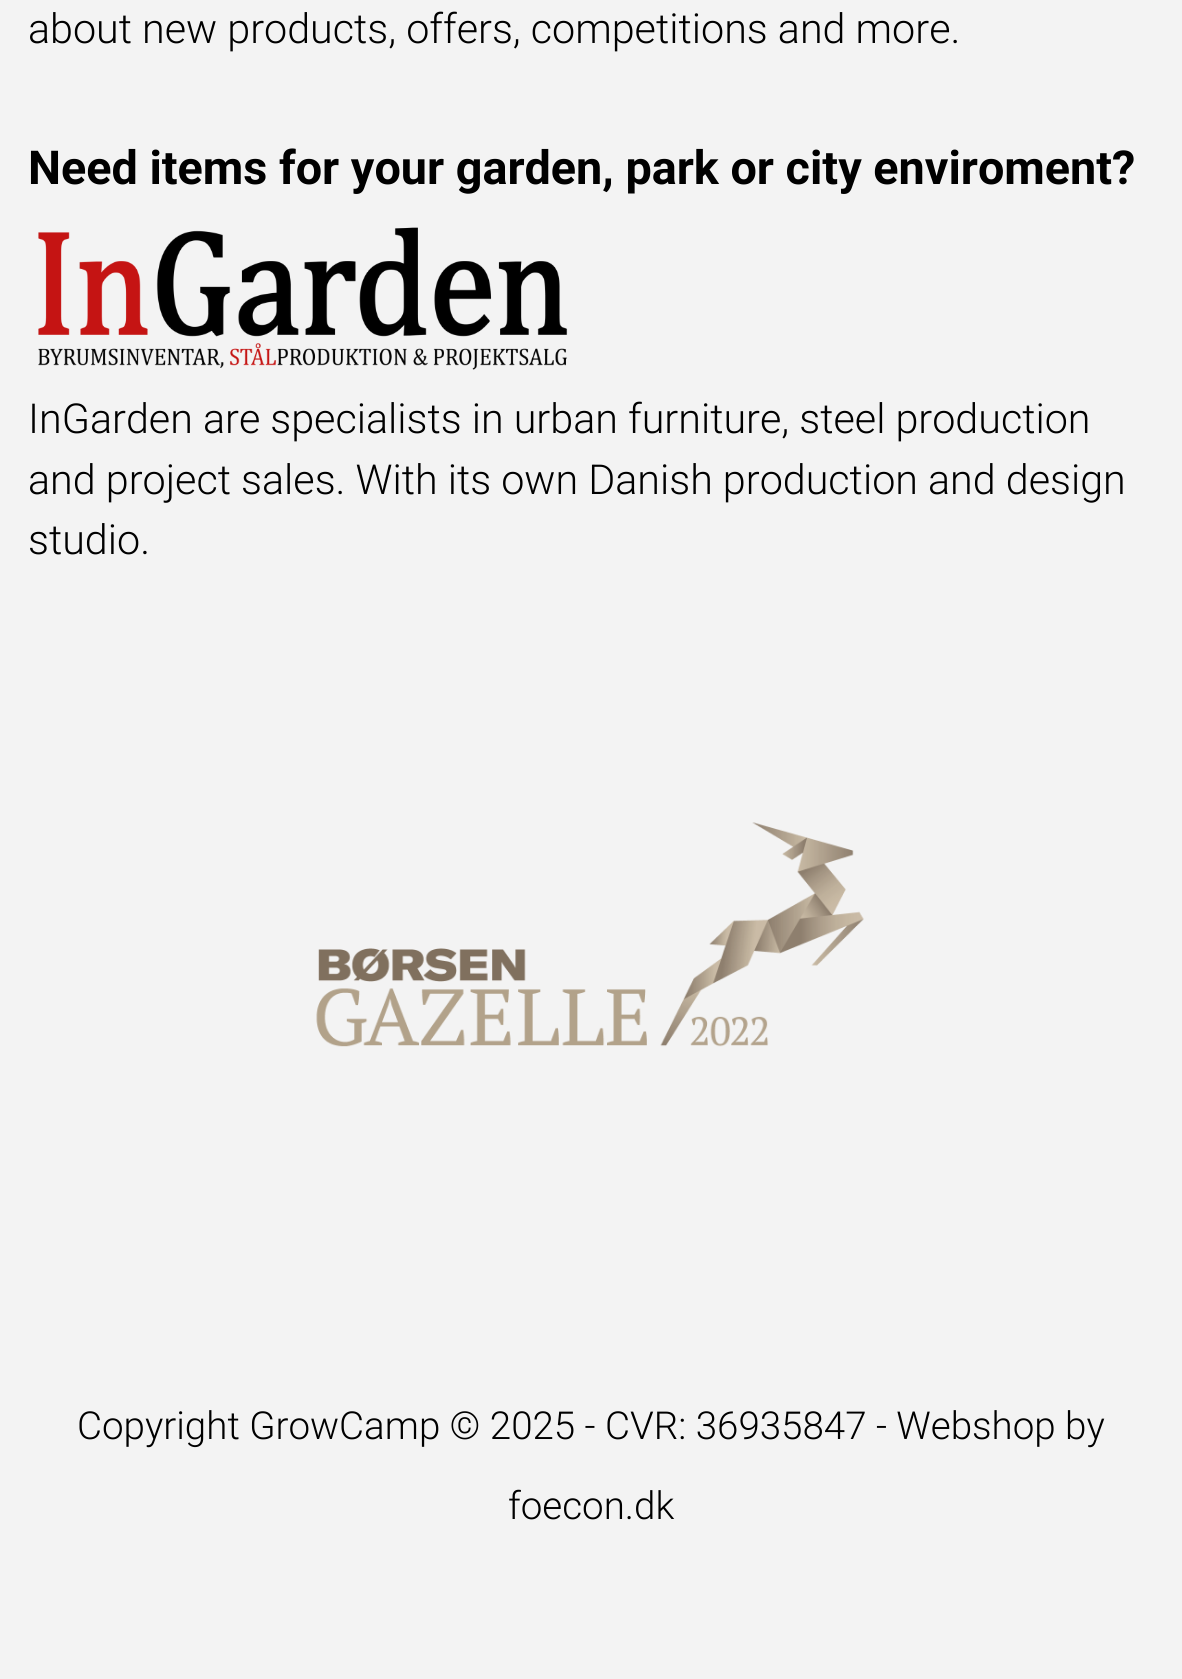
import math
import cairocffi as cairo

surface = cairo.ImageSurface(cairo.FORMAT_RGB24, 1182, 1679)
cr = cairo.Context(surface)
options = cairo.FontOptions()
options.set_hint_metrics(cairo.HINT_METRICS_OFF)
options.set_hint_style(cairo.HINT_STYLE_NONE)
cr.set_font_options(options)
cr.set_miter_limit(4)


def use_color(code):
    cr.set_source_rgb(*(v / 255 for v in bytes.fromhex(code[-6:])))


def picture(path, x, y, w, h):
    cr.save()
    cr.set_source_surface(cairo.ImageSurface.create_from_png(path), x, y)
    cr.rectangle(x, y, w, h)
    cr.fill()
    cr.restore()


use_color("#f3f3f3")
cr.paint()
cr.select_font_face("Roboto Light")
cr.set_font_size(41.25)
use_color("#000000")
cr.move_to(28, 43)
cr.show_text("about new products, offers, competitions and more.")
cr.select_font_face("Roboto", cairo.FONT_SLANT_NORMAL, cairo.FONT_WEIGHT_BOLD)
cr.set_font_size(46.75)
cr.move_to(28, 184)
cr.show_text("Need items for your garden, park or city enviroment?")
picture("img1.png", 38, 227, 530, 143)
cr.select_font_face("Roboto Light")
cr.set_font_size(41.25)
cr.move_to(28, 433)
cr.show_text("InGarden are specialists in urban furniture, steel production")
cr.move_to(28, 494)
cr.show_text("and project sales. With its own Danish production and design")
cr.move_to(28, 554)
cr.show_text("studio.")
picture("img2.png", 316, 822, 548, 225)
cr.set_font_size(38.5)
cr.move_to(77, 1439)
cr.show_text("Copyright GrowCamp © 2025 - CVR: 36935847 - Webshop by")
cr.move_to(508, 1519)
cr.show_text("foecon.dk")
surface.write_to_png("result.png")
